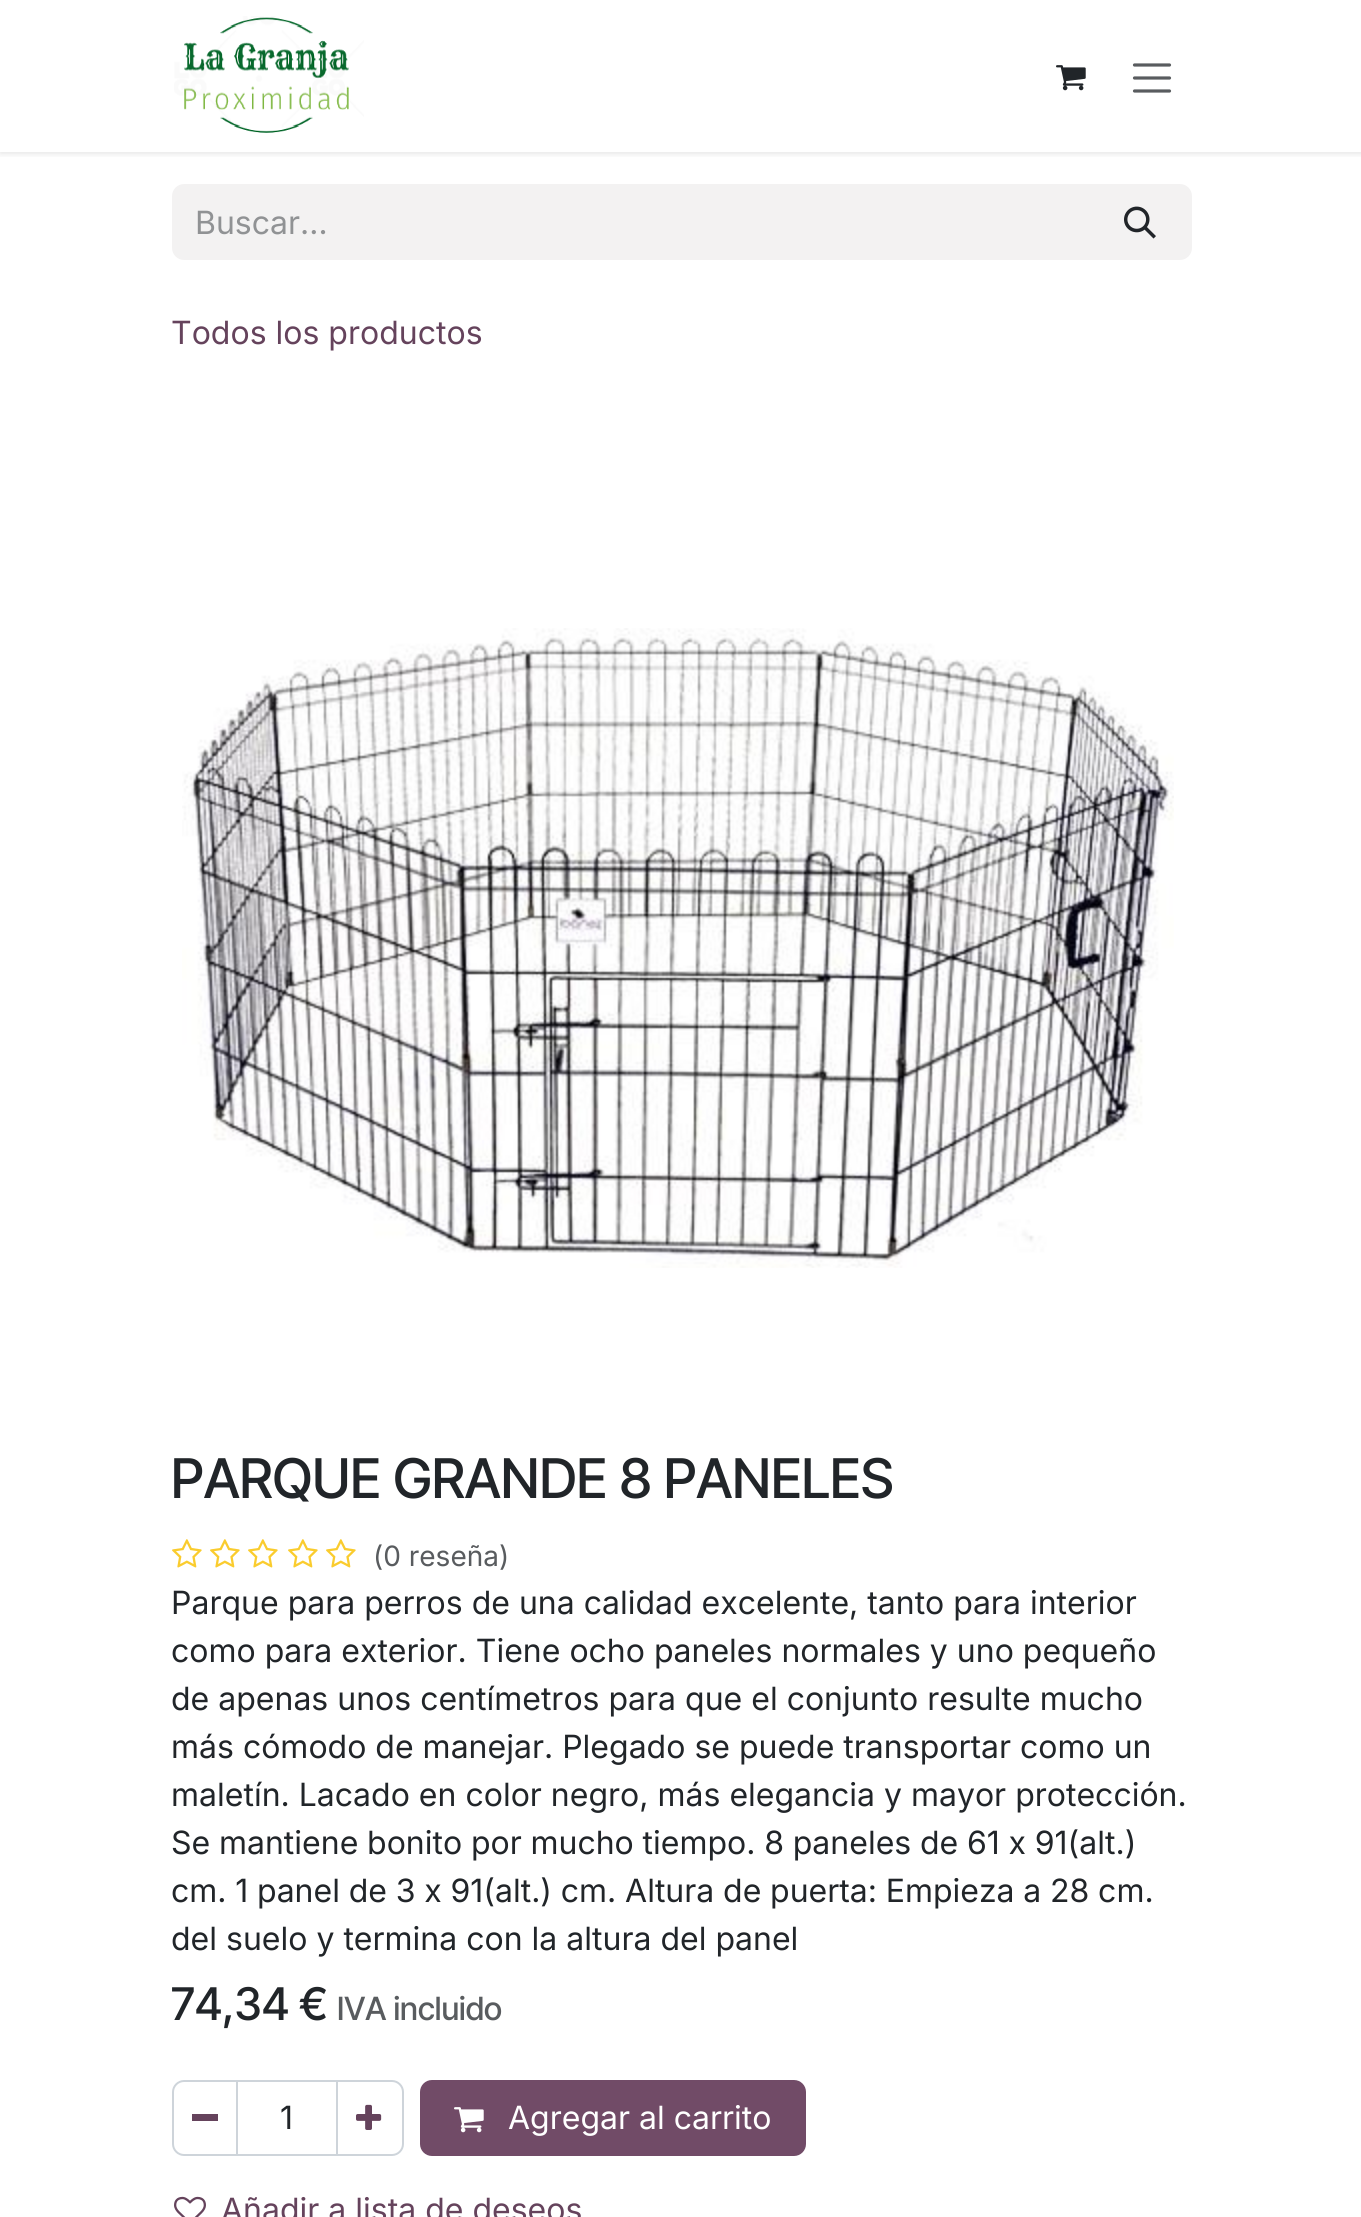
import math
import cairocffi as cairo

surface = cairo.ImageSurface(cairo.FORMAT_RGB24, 1361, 2217)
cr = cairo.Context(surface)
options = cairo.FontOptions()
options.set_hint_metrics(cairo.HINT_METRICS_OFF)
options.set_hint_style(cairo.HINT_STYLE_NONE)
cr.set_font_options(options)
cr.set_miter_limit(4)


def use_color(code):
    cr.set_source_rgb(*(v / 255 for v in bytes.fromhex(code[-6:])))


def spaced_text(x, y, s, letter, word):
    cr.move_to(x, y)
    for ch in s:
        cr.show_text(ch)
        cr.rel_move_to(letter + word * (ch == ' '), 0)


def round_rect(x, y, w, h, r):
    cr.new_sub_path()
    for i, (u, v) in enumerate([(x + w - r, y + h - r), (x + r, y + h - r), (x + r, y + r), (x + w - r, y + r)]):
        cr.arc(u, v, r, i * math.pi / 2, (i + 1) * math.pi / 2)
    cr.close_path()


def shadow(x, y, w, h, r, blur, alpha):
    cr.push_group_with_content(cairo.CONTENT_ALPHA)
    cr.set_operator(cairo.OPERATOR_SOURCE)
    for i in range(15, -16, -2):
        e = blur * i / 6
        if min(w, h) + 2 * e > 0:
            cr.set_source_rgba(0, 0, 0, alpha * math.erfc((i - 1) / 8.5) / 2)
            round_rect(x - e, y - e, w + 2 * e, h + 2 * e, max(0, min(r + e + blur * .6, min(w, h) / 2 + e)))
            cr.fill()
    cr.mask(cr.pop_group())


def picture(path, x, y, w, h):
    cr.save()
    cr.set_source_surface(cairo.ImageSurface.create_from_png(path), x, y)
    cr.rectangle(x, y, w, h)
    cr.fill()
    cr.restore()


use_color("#ffffff")
cr.paint()
cr.save()
cr.rectangle(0, 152, 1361, 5)
cr.clip()
use_color("#000000")
shadow(0, 2, 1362, 152, 0, 3, 0.1)
cr.restore()
picture("img1.png", 174, 16, 190, 117)
picture("img2.png", 1056, 65, 30, 26)
cr.new_path()
cr.move_to(1134.5, 65)
cr.line_to(1169.5, 65)
cr.move_to(1134.5, 78)
cr.line_to(1169.5, 78)
cr.move_to(1134.5, 91)
cr.line_to(1169.5, 91)
use_color("#595c5f")
cr.set_line_width(3.2)
cr.set_line_cap(cairo.LINE_CAP_ROUND)
cr.stroke()
use_color("#f3f2f2")
cr.new_path()
cr.move_to(184, 184)
cr.line_to(1092, 184)
cr.line_to(1092, 260)
cr.line_to(184, 260)
cr.curve_to(177.5, 260, 172, 254.5, 172, 248)
cr.line_to(172, 196)
cr.curve_to(172, 189.5, 177.5, 184, 184, 184)
cr.close_path()
cr.fill()
cr.select_font_face("Inter")
cr.set_font_size(32)
use_color("#909294")
cr.move_to(195, 234)
cr.show_text("Buscar…")
use_color("#f3f2f2")
cr.new_path()
cr.move_to(1091, 185)
cr.line_to(1180, 185)
cr.curve_to(1186, 185, 1191, 190, 1191, 196)
cr.line_to(1191, 248)
cr.curve_to(1191, 254, 1186, 259, 1180, 259)
cr.line_to(1091, 259)
cr.close_path()
cr.fill_preserve()
cr.set_line_width(2)
cr.set_line_cap(cairo.LINE_CAP_BUTT)
cr.stroke()
picture("img3.png", 1124, 206, 32, 33)
use_color("#65435c")
cr.move_to(171, 344)
cr.show_text("Todos los productos")
picture("img4.png", 182, 628, 992, 640)
cr.select_font_face("Inter Tight Medium")
cr.set_font_size(54.7)
use_color("#212529")
cr.move_to(171, 1498)
cr.show_text("PARQUE GRANDE 8 PANELES")
picture("img5.png", 172, 1539, 30, 29)
picture("img5.png", 210, 1539, 30, 29)
picture("img5.png", 248, 1539, 30, 29)
picture("img5.png", 288, 1539, 30, 29)
picture("img5.png", 326, 1539, 30, 29)
cr.select_font_face("Inter")
cr.set_font_size(28)
use_color("#595c5f")
cr.move_to(373, 1566)
cr.show_text("(0 reseña)")
cr.set_font_size(32)
use_color("#212529")
cr.move_to(171, 1614)
cr.show_text("Parque para perros de una calidad excelente, tanto para interior")
cr.move_to(171, 1662)
cr.show_text("como para exterior. Tiene ocho paneles normales y uno pequeño")
cr.move_to(171, 1710)
cr.show_text("de apenas unos centímetros para que el conjunto resulte mucho")
cr.move_to(171, 1758)
cr.show_text("más cómodo de manejar. Plegado se puede transportar como un")
cr.move_to(171, 1806)
cr.show_text("maletín. Lacado en color negro, más elegancia y mayor protección.")
spaced_text(171, 1854, "Se mantiene bonito por mucho tiempo. 8 paneles de 61 x 91(alt.)", 0, -0.25)
spaced_text(171, 1902, "cm. 1 panel de 3 x 91(alt.) cm. Altura de puerta: Empieza a 28 cm.", 0, -0.25)
cr.move_to(171, 1950)
cr.show_text("del suelo y termina con la altura del panel")
cr.select_font_face("Inter Tight Medium")
cr.set_font_size(45)
cr.move_to(171, 2020)
cr.show_text("74,34 €")
cr.set_font_size(32)
use_color("#595c5f")
cr.move_to(337, 2020)
cr.show_text("IVA incluido")
cr.rectangle(237, 2081, 100, 74)
use_color("#ced4da")
cr.stroke()
cr.new_path()
cr.move_to(184, 2081)
cr.line_to(237, 2081)
cr.line_to(237, 2155)
cr.line_to(184, 2155)
cr.curve_to(178, 2155, 173, 2150, 173, 2144)
cr.line_to(173, 2092)
cr.curve_to(173, 2086, 178, 2081, 184, 2081)
cr.close_path()
cr.stroke()
use_color("#65435c")
cr.rectangle(192, 2114, 26, 7)
cr.fill()
cr.select_font_face("Inter")
use_color("#212529")
cr.move_to(280, 2129)
cr.show_text("1")
cr.new_path()
cr.move_to(337, 2081)
cr.line_to(392, 2081)
cr.curve_to(398, 2081, 403, 2086, 403, 2092)
cr.line_to(403, 2144)
cr.curve_to(403, 2150, 398, 2155, 392, 2155)
cr.line_to(337, 2155)
cr.close_path()
use_color("#ced4da")
cr.stroke()
picture("img6.png", 356, 2104, 26, 26)
use_color("#714b67")
round_rect(421, 2081, 384, 74, 11)
cr.fill_preserve()
cr.stroke()
picture("img7.png", 454, 2107, 30, 26)
use_color("#ffffff")
cr.move_to(508, 2129)
cr.show_text("Agregar al carrito")
picture("img8.png", 174, 2196, 32, 21)
use_color("#65435c")
cr.move_to(221, 2221)
cr.show_text("Añadir a lista de deseos")
surface.write_to_png("result.png")
